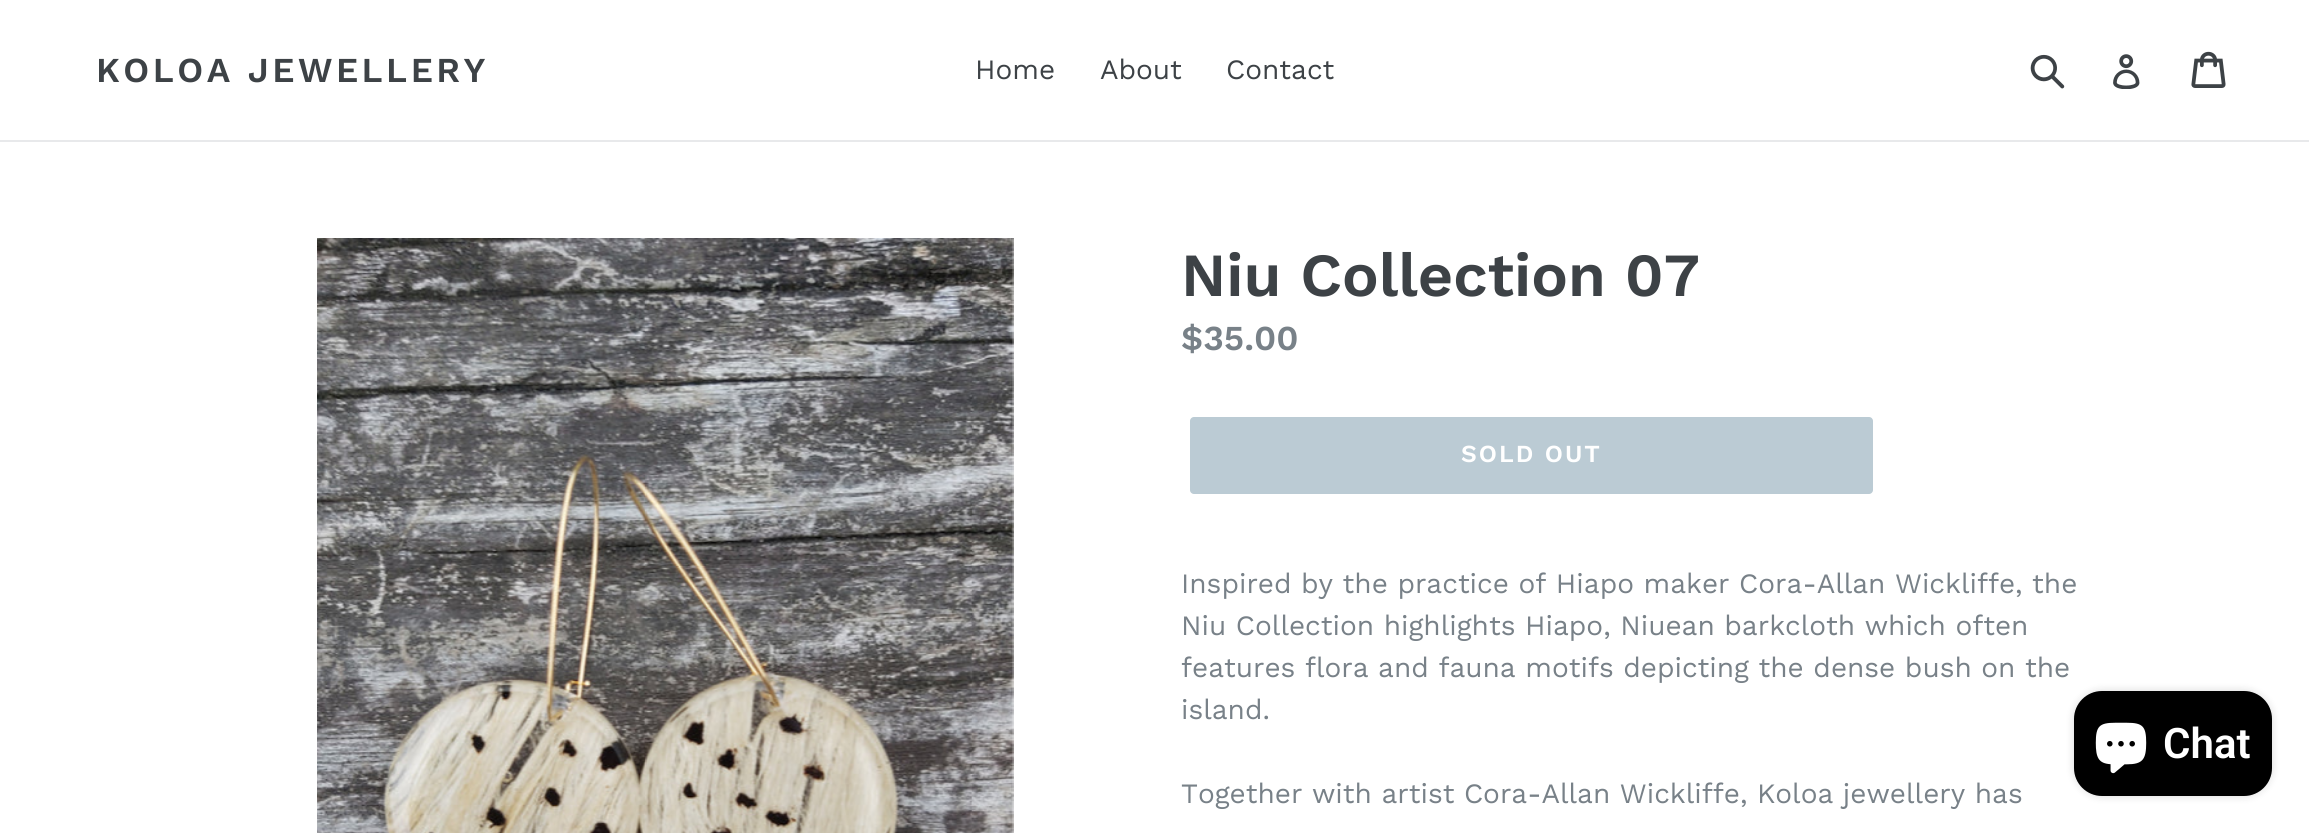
import math
import cairocffi as cairo

surface = cairo.ImageSurface(cairo.FORMAT_RGB24, 2309, 833)
cr = cairo.Context(surface)
options = cairo.FontOptions()
options.set_hint_metrics(cairo.HINT_METRICS_OFF)
options.set_hint_style(cairo.HINT_STYLE_NONE)
cr.set_font_options(options)
cr.set_miter_limit(4)


def use_color(code):
    cr.set_source_rgb(*(v / 255 for v in bytes.fromhex(code[-6:])))


def spaced_text(x, y, s, letter, word):
    cr.move_to(x, y)
    for ch in s:
        cr.show_text(ch)
        cr.rel_move_to(letter + word * (ch == ' '), 0)


def round_rect(x, y, w, h, r):
    cr.new_sub_path()
    for i, (u, v) in enumerate([(x + w - r, y + h - r), (x + r, y + h - r), (x + r, y + r), (x + w - r, y + r)]):
        cr.arc(u, v, r, i * math.pi / 2, (i + 1) * math.pi / 2)
    cr.close_path()


def shadow(x, y, w, h, r, blur, alpha):
    cr.push_group_with_content(cairo.CONTENT_ALPHA)
    cr.set_operator(cairo.OPERATOR_SOURCE)
    for i in range(15, -16, -2):
        e = blur * i / 6
        if min(w, h) + 2 * e > 0:
            cr.set_source_rgba(0, 0, 0, alpha * math.erfc((i - 1) / 8.5) / 2)
            round_rect(x - e, y - e, w + 2 * e, h + 2 * e, max(0, min(r + e + blur * .6, min(w, h) / 2 + e)))
            cr.fill()
    cr.mask(cr.pop_group())


def picture(path, x, y, w, h):
    cr.save()
    cr.set_source_surface(cairo.ImageSurface.create_from_png(path), x, y)
    cr.rectangle(x, y, w, h)
    cr.fill()
    cr.restore()


use_color("#ffffff")
cr.paint()
use_color("#e8e9eb")
cr.rectangle(0, 140, 2309, 2)
cr.fill()
cr.select_font_face("Work Sans SemiBold")
cr.set_font_size(35)
use_color("#3d4246")
spaced_text(96, 82, "KOLOA JEWELLERY", 3.5, 0)
cr.select_font_face("Work Sans")
cr.set_font_size(28)
cr.move_to(975, 79)
cr.show_text("Home")
cr.move_to(1100, 79)
cr.show_text("About")
cr.move_to(1226, 79)
cr.show_text("Contact")
picture("img1.png", 2030, 54, 35, 35)
picture("img2.png", 2113, 54, 27, 35)
picture("img3.png", 2191, 51, 35, 37)
picture("img4.png", 317, 238, 697, 595)
cr.select_font_face("Work Sans SemiBold")
cr.set_font_size(61.25)
cr.move_to(1181, 296)
cr.show_text("Niu Collection 07")
cr.set_font_size(35)
use_color("#788188")
cr.move_to(1181, 350)
cr.show_text("$35.00")
use_color("#bbcbd4")
round_rect(1190, 417, 683, 77, 4)
cr.fill()
cr.set_font_size(24.5)
use_color("#ffffff")
spaced_text(1461, 462, "SOLD OUT", 2, 0)
cr.select_font_face("Work Sans")
cr.set_font_size(28)
use_color("#788188")
cr.move_to(1181, 593)
cr.show_text("Inspired by the practice of Hiapo maker Cora-Allan Wickliffe, the")
cr.move_to(1181, 635)
cr.show_text("Niu Collection highlights Hiapo, Niuean barkcloth which often")
cr.move_to(1181, 677)
cr.show_text("features flora and fauna motifs depicting the dense bush on the")
cr.move_to(1181, 719)
cr.show_text("island.")
cr.move_to(1181, 803)
cr.show_text("Together with artist Cora-Allan Wickliffe, Koloa jewellery has")
use_color("#000000")
shadow(2074, 691, 198, 105, 28, 4.5, 0.15)
use_color("#000000")
round_rect(2074, 691, 198, 105, 28)
cr.fill()
picture("img5.png", 2095, 722, 52, 52)
cr.select_font_face("Roboto SemiBold")
cr.set_font_size(42)
use_color("#ffffff")
cr.move_to(2163, 758)
cr.show_text("Chat")
surface.write_to_png("result.png")
